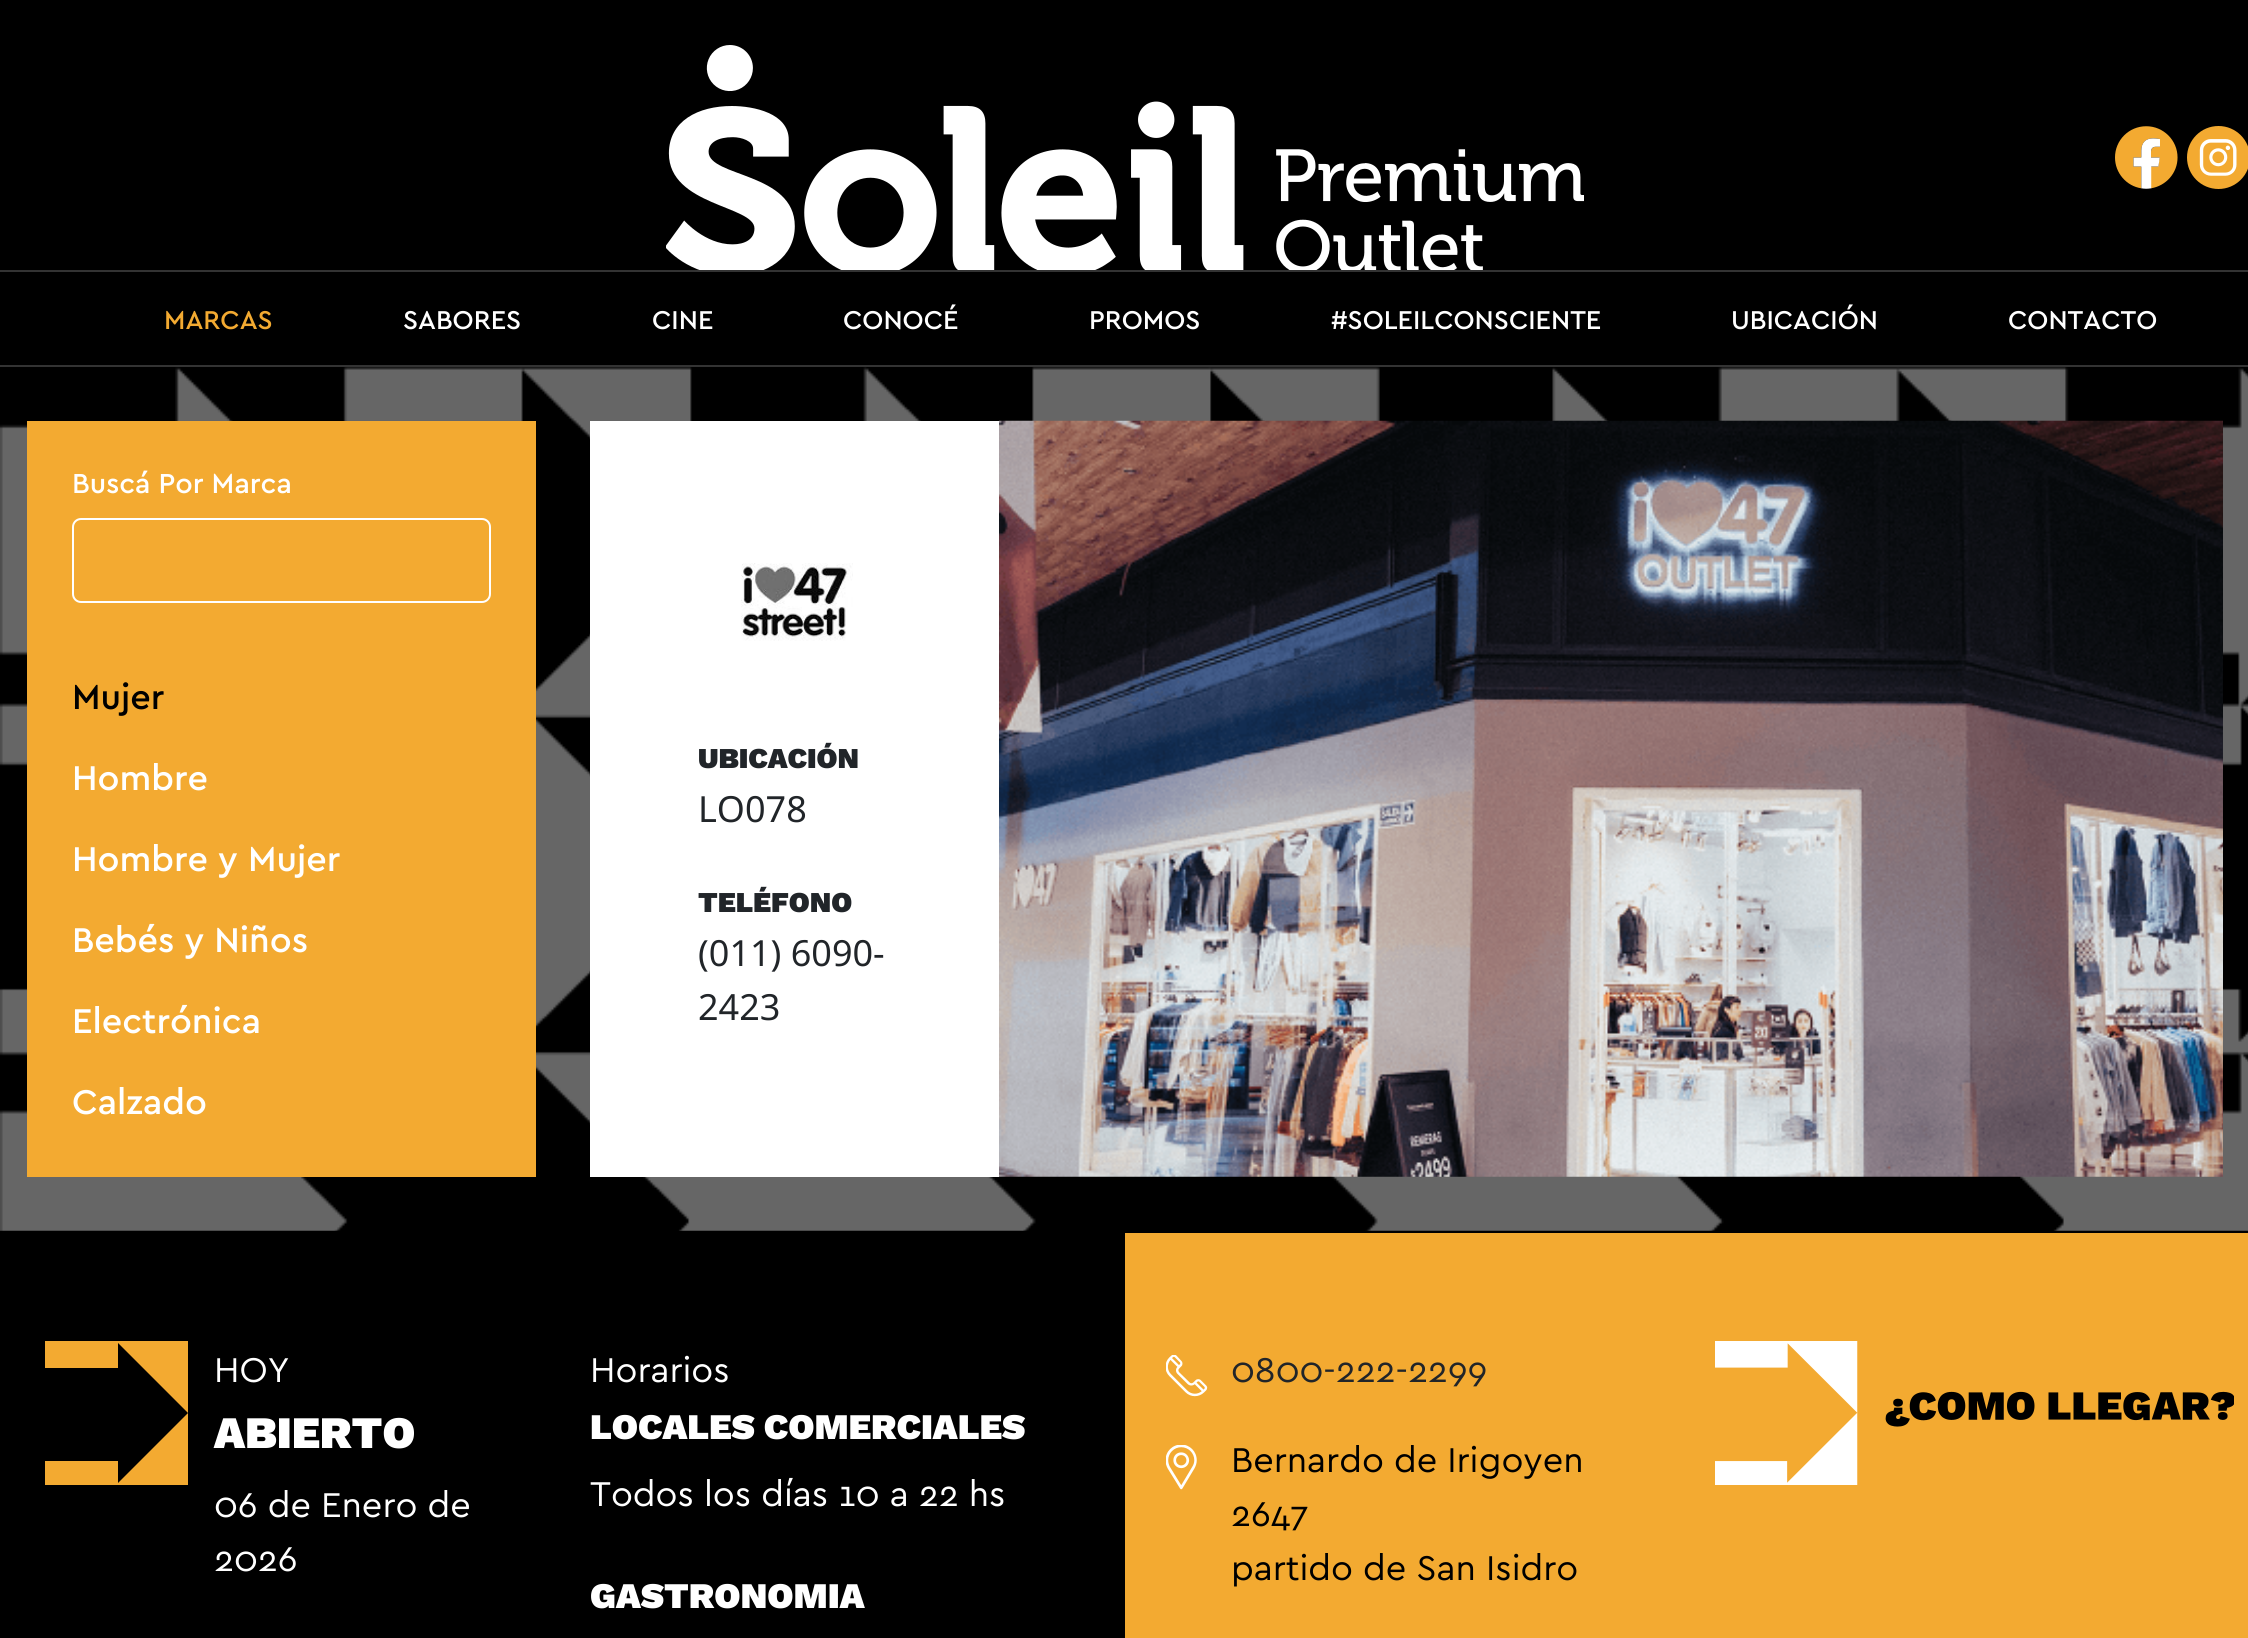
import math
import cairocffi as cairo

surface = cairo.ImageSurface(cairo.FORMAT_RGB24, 2248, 1638)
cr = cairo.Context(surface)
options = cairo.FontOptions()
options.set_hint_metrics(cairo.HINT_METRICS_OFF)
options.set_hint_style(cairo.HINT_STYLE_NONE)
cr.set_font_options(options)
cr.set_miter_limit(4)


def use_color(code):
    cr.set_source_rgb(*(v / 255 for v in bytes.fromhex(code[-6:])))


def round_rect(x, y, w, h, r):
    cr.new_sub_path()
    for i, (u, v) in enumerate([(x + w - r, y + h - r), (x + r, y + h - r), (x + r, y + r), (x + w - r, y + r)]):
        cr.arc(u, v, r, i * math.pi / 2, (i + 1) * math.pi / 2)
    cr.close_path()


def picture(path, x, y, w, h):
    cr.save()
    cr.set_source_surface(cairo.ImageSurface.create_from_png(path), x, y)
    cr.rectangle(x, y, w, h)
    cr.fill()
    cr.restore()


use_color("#000000")
cr.paint()
picture("img1.png", 666, 45, 918, 225)
picture("img2.png", 2115, 126, 63, 63)
picture("img3.png", 2187, 126, 61, 63)
use_color("#333333")
cr.rectangle(0, 270, 2248, 2)
cr.fill()
cr.rectangle(0, 365, 2248, 2)
cr.fill()
cr.select_font_face("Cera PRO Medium")
cr.set_font_size(27)
use_color("#f3aa31")
cr.move_to(164, 329)
cr.show_text("MARCAS")
use_color("#ffffff")
cr.move_to(403, 329)
cr.show_text("SABORES")
cr.move_to(652, 329)
cr.show_text("CINE")
cr.move_to(843, 329)
cr.show_text("CONOCÉ")
cr.move_to(1089, 329)
cr.show_text("PROMOS")
cr.move_to(1331, 329)
cr.show_text("#SOLEILCONSCIENTE")
cr.move_to(1731, 329)
cr.show_text("UBICACIÓN")
cr.move_to(2008, 329)
cr.show_text("CONTACTO")
picture("img4.png", 0, 367, 2248, 864)
use_color("#f3aa31")
cr.rectangle(27, 421, 509, 756)
cr.fill()
cr.set_font_size(28.75)
use_color("#ffffff")
cr.move_to(72, 493)
cr.show_text("Buscá Por Marca")
round_rect(73, 519, 417, 83, 8)
cr.stroke()
cr.set_font_size(36)
use_color("#000000")
cr.move_to(72, 709)
cr.show_text("Mujer")
use_color("#ffffff")
cr.move_to(72, 790)
cr.show_text("Hombre")
cr.move_to(72, 871)
cr.show_text("Hombre y Mujer")
cr.move_to(72, 952)
cr.show_text("Bebés y Niños")
cr.move_to(72, 1033)
cr.show_text("Electrónica")
cr.move_to(72, 1114)
cr.show_text("Calzado")
cr.rectangle(590, 421, 409, 756)
cr.fill()
picture("img5.png", 741, 563, 112, 78)
cr.select_font_face("Work Sans Black")
cr.set_font_size(28.75)
use_color("#212529")
cr.move_to(698, 768)
cr.show_text("UBICACIÓN")
cr.select_font_face("Noto Sans")
cr.set_font_size(36)
cr.move_to(698, 822)
cr.show_text("LO078")
cr.select_font_face("Work Sans Black")
cr.set_font_size(28.75)
cr.move_to(698, 912)
cr.show_text("TELÉFONO")
cr.select_font_face("Noto Sans")
cr.set_font_size(36)
cr.move_to(698, 966)
cr.show_text("(011) 6090-")
cr.move_to(698, 1020)
cr.show_text("2423")
picture("img6.png", 999, 420, 1224, 757)
use_color("#f3aa31")
cr.rectangle(1125, 1233, 1123, 405)
cr.fill()
cr.new_path()
cr.move_to(45, 1341)
cr.line_to(45, 1368)
cr.line_to(118, 1368)
cr.line_to(118, 1343)
cr.line_to(188, 1413)
cr.line_to(188, 1341)
cr.close_path()
cr.fill()
cr.new_path()
cr.move_to(118, 1461)
cr.line_to(45, 1461)
cr.line_to(45, 1485)
cr.line_to(188, 1485)
cr.line_to(188, 1413)
cr.line_to(118, 1483)
cr.close_path()
cr.fill()
cr.select_font_face("Cera PRO")
use_color("#ffffff")
cr.move_to(214, 1382)
cr.show_text("HOY")
cr.select_font_face("Work Sans Black")
cr.set_font_size(45)
cr.move_to(214, 1448)
cr.show_text("ABIERTO")
cr.select_font_face("Cera PRO")
cr.set_font_size(36)
cr.move_to(214, 1517)
cr.show_text("06 de Enero de")
cr.move_to(214, 1571)
cr.show_text("2026")
cr.move_to(590, 1382)
cr.show_text("Horarios")
cr.select_font_face("Work Sans Black")
cr.move_to(590, 1439)
cr.show_text("LOCALES COMERCIALES")
cr.select_font_face("Cera PRO")
cr.move_to(590, 1506)
cr.show_text("Todos los días 10 a 22 hs")
cr.select_font_face("Work Sans Black")
cr.move_to(590, 1608)
cr.show_text("GASTRONOMIA")
picture("img7.png", 1166, 1355, 42, 42)
cr.select_font_face("Cera PRO")
use_color("#212529")
cr.move_to(1231, 1382)
cr.show_text("0800-222-2299")
picture("img8.png", 1166, 1445, 31, 45)
use_color("#000000")
cr.move_to(1231, 1472)
cr.show_text("Bernardo de Irigoyen")
cr.move_to(1231, 1526)
cr.show_text("2647")
cr.move_to(1231, 1580)
cr.show_text("partido de San Isidro")
picture("img9.png", 1715, 1341, 519, 144)
surface.write_to_png("result.png")
